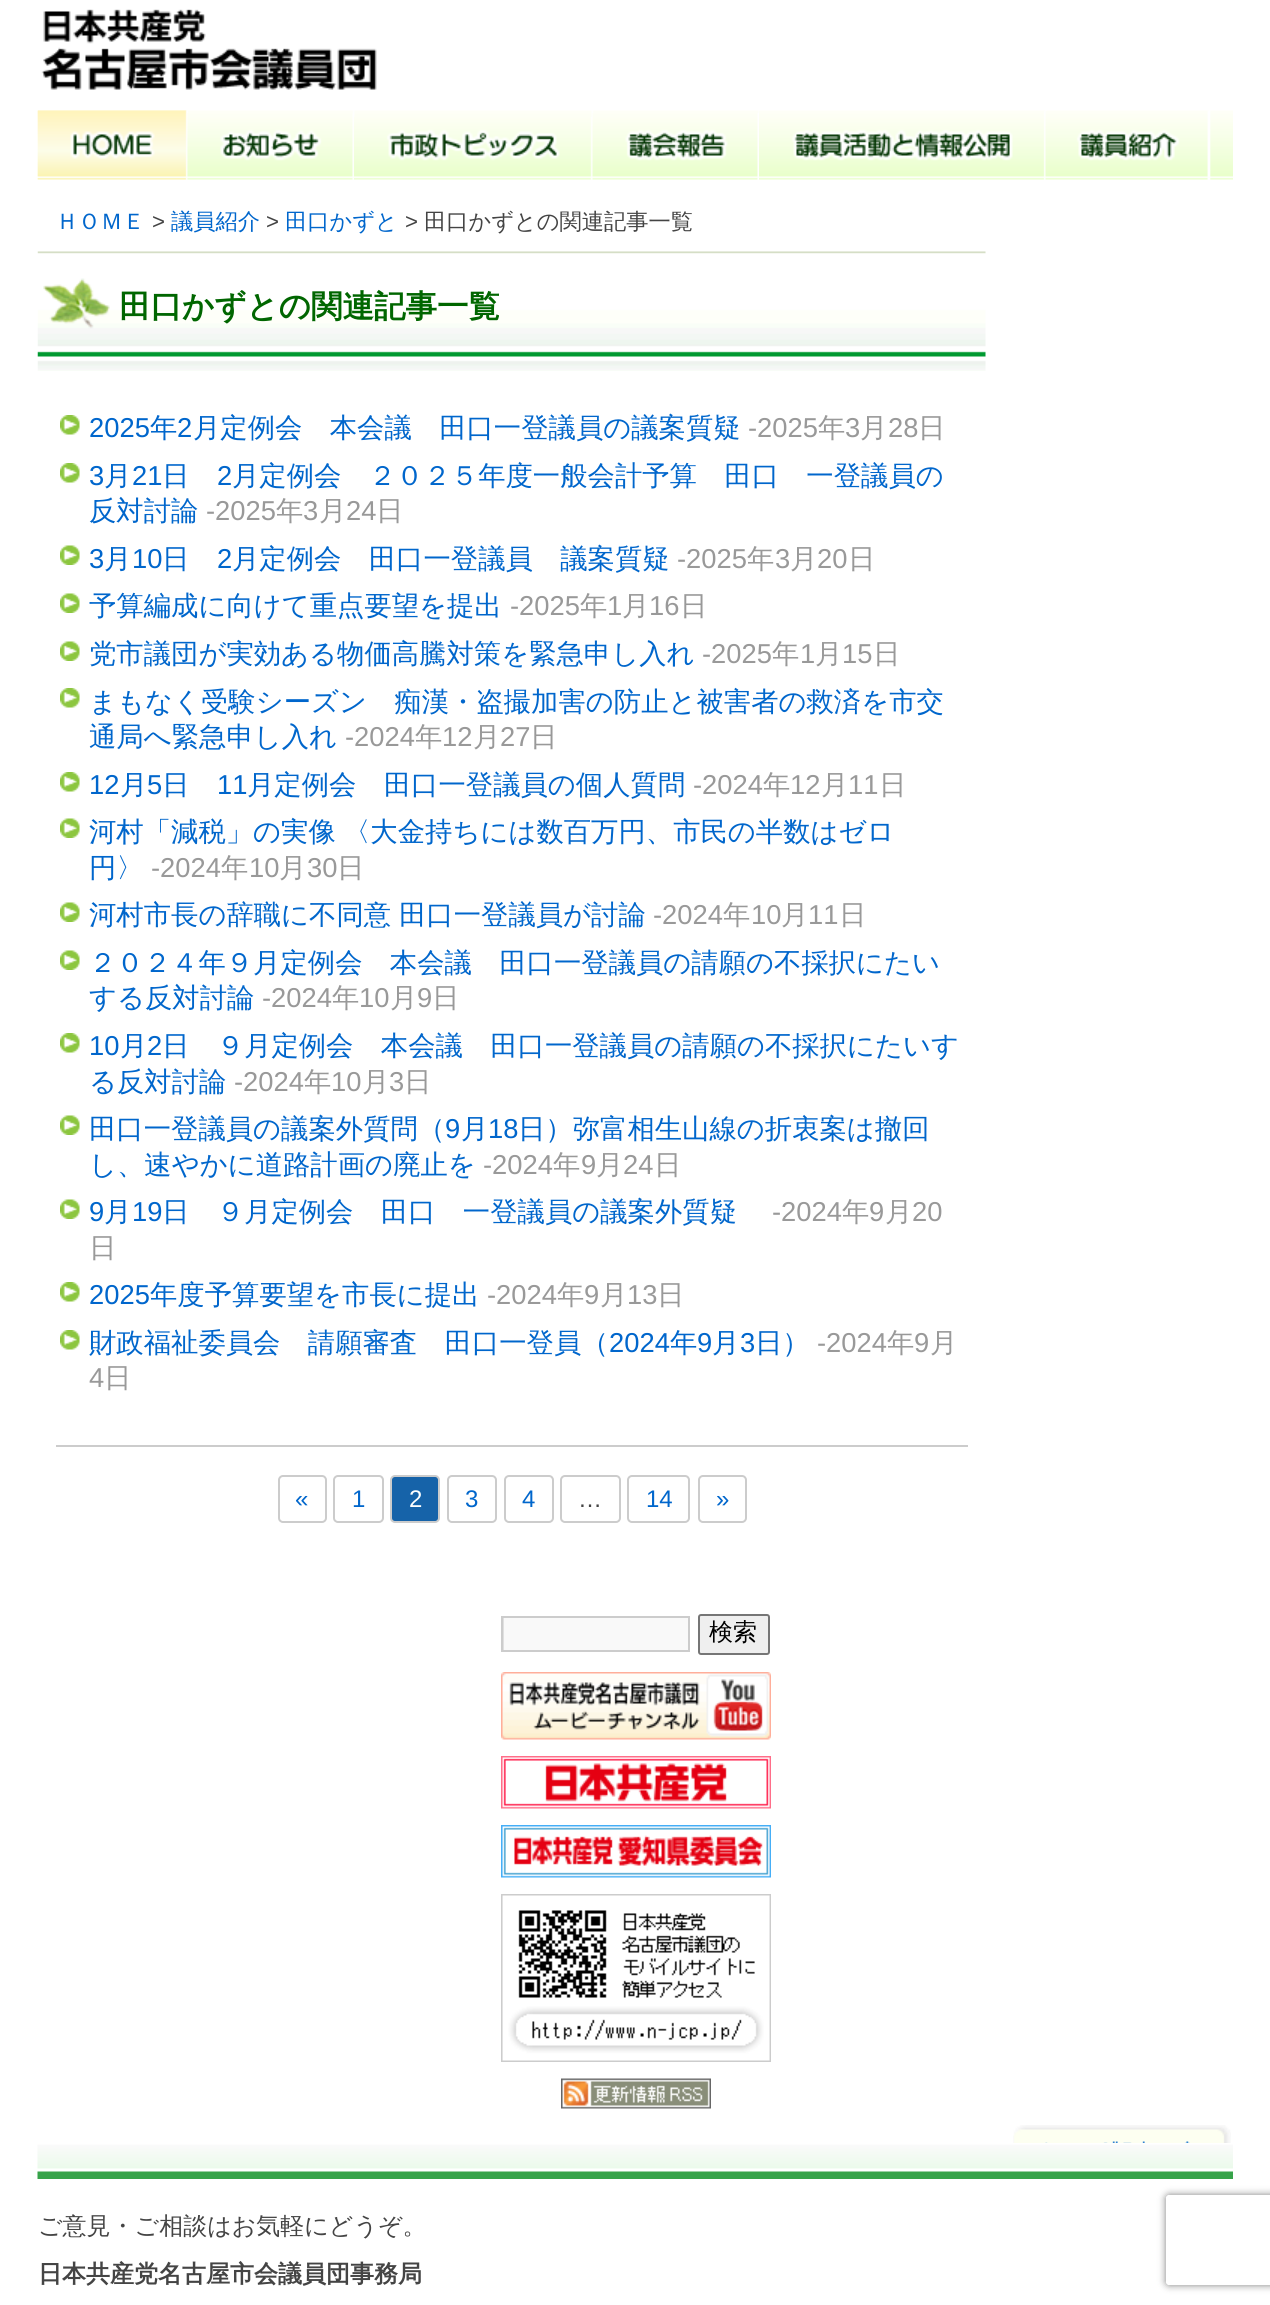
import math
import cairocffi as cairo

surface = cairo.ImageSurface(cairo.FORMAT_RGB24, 1270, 2305)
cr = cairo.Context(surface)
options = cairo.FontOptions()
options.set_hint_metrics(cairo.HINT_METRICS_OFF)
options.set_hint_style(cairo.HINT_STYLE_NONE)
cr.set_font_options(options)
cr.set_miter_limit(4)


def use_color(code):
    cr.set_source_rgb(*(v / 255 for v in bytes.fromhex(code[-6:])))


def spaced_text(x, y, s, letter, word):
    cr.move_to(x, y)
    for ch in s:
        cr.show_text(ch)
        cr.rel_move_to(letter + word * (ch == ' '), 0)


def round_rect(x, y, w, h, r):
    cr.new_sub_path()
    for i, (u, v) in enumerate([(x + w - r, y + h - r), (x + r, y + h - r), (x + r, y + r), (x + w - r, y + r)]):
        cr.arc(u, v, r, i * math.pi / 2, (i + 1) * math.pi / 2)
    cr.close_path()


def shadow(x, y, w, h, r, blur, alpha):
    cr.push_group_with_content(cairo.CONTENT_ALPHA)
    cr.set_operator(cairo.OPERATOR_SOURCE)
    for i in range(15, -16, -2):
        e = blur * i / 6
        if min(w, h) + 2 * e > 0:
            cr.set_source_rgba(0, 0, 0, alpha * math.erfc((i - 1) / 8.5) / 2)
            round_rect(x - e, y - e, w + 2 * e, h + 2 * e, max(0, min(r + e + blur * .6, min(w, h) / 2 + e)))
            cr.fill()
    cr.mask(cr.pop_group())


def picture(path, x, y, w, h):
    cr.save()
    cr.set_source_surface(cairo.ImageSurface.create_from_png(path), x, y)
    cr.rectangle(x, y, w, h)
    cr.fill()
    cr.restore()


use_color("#ffffff")
cr.paint()
picture("img1.png", 41, 9, 336, 81)
picture("img2.png", 37, 110, 1196, 70)
picture("img3.png", 37, 110, 151, 70)
picture("img4.png", 187, 113, 166, 67)
picture("img5.png", 354, 117, 238, 63)
picture("img6.png", 592, 113, 167, 67)
picture("img7.png", 759, 111, 287, 69)
picture("img8.png", 1045, 111, 164, 69)
cr.select_font_face("WenQuanYi Zen Hei Medium")
cr.set_font_size(22.25)
use_color("#0066cc")
cr.move_to(56, 229)
cr.show_text("ＨＯＭＥ")
cr.select_font_face("Liberation Sans")
use_color("#444444")
cr.move_to(152, 229)
cr.show_text(">")
cr.select_font_face("WenQuanYi Zen Hei Medium")
use_color("#0066cc")
cr.move_to(171, 229)
cr.show_text("議員紹介")
cr.select_font_face("Liberation Sans")
use_color("#444444")
cr.move_to(266, 229)
cr.show_text(">")
cr.select_font_face("WenQuanYi Zen Hei Medium")
use_color("#0066cc")
cr.move_to(285, 229)
cr.show_text("田口かずと")
cr.select_font_face("Liberation Sans")
use_color("#444444")
cr.move_to(405, 229)
cr.show_text(">")
cr.select_font_face("WenQuanYi Zen Hei Medium")
cr.move_to(424, 229)
cr.show_text("田口かずとの関連記事一覧")
picture("img9.png", 37, 251, 949, 120)
cr.select_font_face("WenQuanYi Zen Hei", cairo.FONT_SLANT_NORMAL, cairo.FONT_WEIGHT_BOLD)
cr.set_font_size(31.5)
use_color("#006600")
cr.move_to(119, 317)
cr.show_text("田口かずとの関連記事一覧")
picture("img10.png", 60, 415, 20, 20)
cr.select_font_face("Liberation Sans")
cr.set_font_size(27.35)
use_color("#0066cc")
cr.move_to(89, 437)
cr.show_text("2025")
cr.select_font_face("WenQuanYi Zen Hei Medium")
cr.move_to(150, 437)
cr.show_text("年")
cr.select_font_face("Liberation Sans")
cr.move_to(177, 437)
cr.show_text("2")
cr.select_font_face("WenQuanYi Zen Hei Medium")
cr.move_to(193, 437)
cr.show_text("月定例会　本会議　田口一登議員の議案質疑")
cr.select_font_face("Liberation Sans")
use_color("#999999")
cr.move_to(748, 437)
cr.show_text("-2025")
cr.select_font_face("WenQuanYi Zen Hei Medium")
cr.move_to(818, 437)
cr.show_text("年")
cr.select_font_face("Liberation Sans")
cr.move_to(845, 437)
cr.show_text("3")
cr.select_font_face("WenQuanYi Zen Hei Medium")
cr.move_to(860, 437)
cr.show_text("月")
cr.select_font_face("Liberation Sans")
cr.move_to(888, 437)
cr.show_text("28")
cr.select_font_face("WenQuanYi Zen Hei Medium")
cr.move_to(918, 437)
cr.show_text("日")
picture("img10.png", 60, 463, 20, 20)
cr.select_font_face("Liberation Sans")
use_color("#0066cc")
cr.move_to(89, 485)
cr.show_text("3")
cr.select_font_face("WenQuanYi Zen Hei Medium")
cr.move_to(104, 485)
cr.show_text("月")
cr.select_font_face("Liberation Sans")
cr.move_to(132, 485)
cr.show_text("21")
cr.select_font_face("WenQuanYi Zen Hei Medium")
cr.move_to(162, 485)
cr.show_text("日")
cr.select_font_face("Liberation Sans")
cr.move_to(217, 485)
cr.show_text("2")
cr.select_font_face("WenQuanYi Zen Hei Medium")
cr.move_to(232, 485)
cr.show_text("月定例会　２０２５年度一般会計予算　田口　一登議員の")
cr.move_to(89, 520)
cr.show_text("反対討論")
cr.select_font_face("Liberation Sans")
use_color("#999999")
cr.move_to(206, 520)
cr.show_text("-2025")
cr.select_font_face("WenQuanYi Zen Hei Medium")
cr.move_to(276, 520)
cr.show_text("年")
cr.select_font_face("Liberation Sans")
cr.move_to(303, 520)
cr.show_text("3")
cr.select_font_face("WenQuanYi Zen Hei Medium")
cr.move_to(319, 520)
cr.show_text("月")
cr.select_font_face("Liberation Sans")
cr.move_to(346, 520)
cr.show_text("24")
cr.select_font_face("WenQuanYi Zen Hei Medium")
cr.move_to(376, 520)
cr.show_text("日")
picture("img11.png", 60, 545, 20, 20)
cr.select_font_face("Liberation Sans")
use_color("#0066cc")
cr.move_to(89, 568)
cr.show_text("3")
cr.select_font_face("WenQuanYi Zen Hei Medium")
cr.move_to(104, 568)
cr.show_text("月")
cr.select_font_face("Liberation Sans")
cr.move_to(132, 568)
cr.show_text("10")
cr.select_font_face("WenQuanYi Zen Hei Medium")
cr.move_to(162, 568)
cr.show_text("日")
cr.select_font_face("Liberation Sans")
cr.move_to(217, 568)
cr.show_text("2")
cr.select_font_face("WenQuanYi Zen Hei Medium")
cr.move_to(232, 568)
cr.show_text("月定例会　田口一登議員　議案質疑")
cr.select_font_face("Liberation Sans")
use_color("#999999")
cr.move_to(677, 568)
cr.show_text("-2025")
cr.select_font_face("WenQuanYi Zen Hei Medium")
cr.move_to(747, 568)
cr.show_text("年")
cr.select_font_face("Liberation Sans")
cr.move_to(775, 568)
cr.show_text("3")
cr.select_font_face("WenQuanYi Zen Hei Medium")
cr.move_to(790, 568)
cr.show_text("月")
cr.select_font_face("Liberation Sans")
cr.move_to(817, 568)
cr.show_text("20")
cr.select_font_face("WenQuanYi Zen Hei Medium")
cr.move_to(848, 568)
cr.show_text("日")
picture("img11.png", 60, 593, 20, 20)
use_color("#0066cc")
cr.move_to(89, 615)
cr.show_text("予算編成に向けて重点要望を提出")
cr.select_font_face("Liberation Sans")
use_color("#999999")
cr.move_to(510, 615)
cr.show_text("-2025")
cr.select_font_face("WenQuanYi Zen Hei Medium")
cr.move_to(580, 615)
cr.show_text("年")
cr.select_font_face("Liberation Sans")
cr.move_to(607, 615)
cr.show_text("1")
cr.select_font_face("WenQuanYi Zen Hei Medium")
cr.move_to(622, 615)
cr.show_text("月")
cr.select_font_face("Liberation Sans")
cr.move_to(649, 615)
cr.show_text("16")
cr.select_font_face("WenQuanYi Zen Hei Medium")
cr.move_to(680, 615)
cr.show_text("日")
picture("img11.png", 60, 641, 20, 20)
use_color("#0066cc")
cr.move_to(89, 663)
cr.show_text("党市議団が実効ある物価高騰対策を緊急申し入れ")
cr.select_font_face("Liberation Sans")
use_color("#999999")
cr.move_to(702, 663)
cr.show_text("-2025")
cr.select_font_face("WenQuanYi Zen Hei Medium")
cr.move_to(772, 663)
cr.show_text("年")
cr.select_font_face("Liberation Sans")
cr.move_to(800, 663)
cr.show_text("1")
cr.select_font_face("WenQuanYi Zen Hei Medium")
cr.move_to(815, 663)
cr.show_text("月")
cr.select_font_face("Liberation Sans")
cr.move_to(842, 663)
cr.show_text("15")
cr.select_font_face("WenQuanYi Zen Hei Medium")
cr.move_to(873, 663)
cr.show_text("日")
picture("img10.png", 60, 688, 20, 20)
use_color("#0066cc")
cr.move_to(89, 711)
cr.show_text("まもなく受験シーズン　痴漢・盗撮加害の防止と被害者の救済を市交")
cr.move_to(89, 746)
cr.show_text("通局へ緊急申し入れ")
cr.select_font_face("Liberation Sans")
use_color("#999999")
cr.move_to(345, 746)
cr.show_text("-2024")
cr.select_font_face("WenQuanYi Zen Hei Medium")
cr.move_to(415, 746)
cr.show_text("年")
cr.select_font_face("Liberation Sans")
cr.move_to(442, 746)
cr.show_text("12")
cr.select_font_face("WenQuanYi Zen Hei Medium")
cr.move_to(473, 746)
cr.show_text("月")
cr.select_font_face("Liberation Sans")
cr.move_to(500, 746)
cr.show_text("27")
cr.select_font_face("WenQuanYi Zen Hei Medium")
cr.move_to(530, 746)
cr.show_text("日")
picture("img10.png", 60, 772, 20, 20)
cr.select_font_face("Liberation Sans")
use_color("#0066cc")
cr.move_to(89, 794)
cr.show_text("12")
cr.select_font_face("WenQuanYi Zen Hei Medium")
cr.move_to(120, 794)
cr.show_text("月")
cr.select_font_face("Liberation Sans")
cr.move_to(147, 794)
cr.show_text("5")
cr.select_font_face("WenQuanYi Zen Hei Medium")
cr.move_to(162, 794)
cr.show_text("日")
cr.select_font_face("Liberation Sans")
cr.move_to(217, 794)
cr.show_text("11")
cr.select_font_face("WenQuanYi Zen Hei Medium")
cr.move_to(247, 794)
cr.show_text("月定例会　田口一登議員の個人質問")
cr.select_font_face("Liberation Sans")
use_color("#999999")
cr.move_to(693, 794)
cr.show_text("-2024")
cr.select_font_face("WenQuanYi Zen Hei Medium")
cr.move_to(763, 794)
cr.show_text("年")
cr.select_font_face("Liberation Sans")
cr.move_to(790, 794)
cr.show_text("12")
cr.select_font_face("WenQuanYi Zen Hei Medium")
cr.move_to(821, 794)
cr.show_text("月")
cr.select_font_face("Liberation Sans")
cr.move_to(848, 794)
cr.show_text("11")
cr.select_font_face("WenQuanYi Zen Hei Medium")
cr.move_to(879, 794)
cr.show_text("日")
picture("img11.png", 60, 818, 20, 20)
use_color("#0066cc")
spaced_text(89, 841, "河村「減税」の実像 〈大金持ちには数百万円、市民の半数はゼロ", 0, -1)
cr.move_to(89, 877)
cr.show_text("円〉")
cr.select_font_face("Liberation Sans")
use_color("#999999")
cr.move_to(151, 877)
cr.show_text("-2024")
cr.select_font_face("WenQuanYi Zen Hei Medium")
cr.move_to(221, 877)
cr.show_text("年")
cr.select_font_face("Liberation Sans")
cr.move_to(249, 877)
cr.show_text("10")
cr.select_font_face("WenQuanYi Zen Hei Medium")
cr.move_to(279, 877)
cr.show_text("月")
cr.select_font_face("Liberation Sans")
cr.move_to(307, 877)
cr.show_text("30")
cr.select_font_face("WenQuanYi Zen Hei Medium")
cr.move_to(337, 877)
cr.show_text("日")
picture("img11.png", 60, 902, 20, 20)
use_color("#0066cc")
cr.move_to(89, 924)
cr.show_text("河村市長の辞職に不同意")
cr.move_to(399, 924)
cr.show_text("田口一登議員が討論")
cr.select_font_face("Liberation Sans")
use_color("#999999")
cr.move_to(653, 924)
cr.show_text("-2024")
cr.select_font_face("WenQuanYi Zen Hei Medium")
cr.move_to(723, 924)
cr.show_text("年")
cr.select_font_face("Liberation Sans")
cr.move_to(751, 924)
cr.show_text("10")
cr.select_font_face("WenQuanYi Zen Hei Medium")
cr.move_to(781, 924)
cr.show_text("月")
cr.select_font_face("Liberation Sans")
cr.move_to(808, 924)
cr.show_text("11")
cr.select_font_face("WenQuanYi Zen Hei Medium")
cr.move_to(839, 924)
cr.show_text("日")
picture("img11.png", 60, 950, 20, 20)
use_color("#0066cc")
cr.move_to(89, 972)
cr.show_text("２０２４年９月定例会　本会議　田口一登議員の請願の不採択にたい")
cr.move_to(89, 1007)
cr.show_text("する反対討論")
cr.select_font_face("Liberation Sans")
use_color("#999999")
cr.move_to(262, 1007)
cr.show_text("-2024")
cr.select_font_face("WenQuanYi Zen Hei Medium")
cr.move_to(332, 1007)
cr.show_text("年")
cr.select_font_face("Liberation Sans")
cr.move_to(359, 1007)
cr.show_text("10")
cr.select_font_face("WenQuanYi Zen Hei Medium")
cr.move_to(390, 1007)
cr.show_text("月")
cr.select_font_face("Liberation Sans")
cr.move_to(417, 1007)
cr.show_text("9")
cr.select_font_face("WenQuanYi Zen Hei Medium")
cr.move_to(432, 1007)
cr.show_text("日")
picture("img10.png", 60, 1033, 20, 20)
cr.select_font_face("Liberation Sans")
use_color("#0066cc")
cr.move_to(89, 1055)
cr.show_text("10")
cr.select_font_face("WenQuanYi Zen Hei Medium")
cr.move_to(120, 1055)
cr.show_text("月")
cr.select_font_face("Liberation Sans")
cr.move_to(147, 1055)
cr.show_text("2")
cr.select_font_face("WenQuanYi Zen Hei Medium")
cr.move_to(162, 1055)
cr.show_text("日　９月定例会　本会議　田口一登議員の請願の不採択にたいす")
cr.move_to(89, 1091)
cr.show_text("る反対討論")
cr.select_font_face("Liberation Sans")
use_color("#999999")
cr.move_to(234, 1091)
cr.show_text("-2024")
cr.select_font_face("WenQuanYi Zen Hei Medium")
cr.move_to(304, 1091)
cr.show_text("年")
cr.select_font_face("Liberation Sans")
cr.move_to(331, 1091)
cr.show_text("10")
cr.select_font_face("WenQuanYi Zen Hei Medium")
cr.move_to(362, 1091)
cr.show_text("月")
cr.select_font_face("Liberation Sans")
cr.move_to(389, 1091)
cr.show_text("3")
cr.select_font_face("WenQuanYi Zen Hei Medium")
cr.move_to(404, 1091)
cr.show_text("日")
picture("img11.png", 60, 1115, 20, 20)
use_color("#0066cc")
cr.move_to(89, 1138)
cr.show_text("田口一登議員の議案外質問（")
cr.select_font_face("Liberation Sans")
cr.move_to(445, 1138)
cr.show_text("9")
cr.select_font_face("WenQuanYi Zen Hei Medium")
cr.move_to(461, 1138)
cr.show_text("月")
cr.select_font_face("Liberation Sans")
cr.move_to(488, 1138)
cr.show_text("18")
cr.select_font_face("WenQuanYi Zen Hei Medium")
cr.move_to(518, 1138)
cr.show_text("日）弥富相生山線の折衷案は撤回")
cr.move_to(89, 1174)
cr.show_text("し、速やかに道路計画の廃止を")
cr.select_font_face("Liberation Sans")
use_color("#999999")
cr.move_to(483, 1174)
cr.show_text("-2024")
cr.select_font_face("WenQuanYi Zen Hei Medium")
cr.move_to(553, 1174)
cr.show_text("年")
cr.select_font_face("Liberation Sans")
cr.move_to(581, 1174)
cr.show_text("9")
cr.select_font_face("WenQuanYi Zen Hei Medium")
cr.move_to(596, 1174)
cr.show_text("月")
cr.select_font_face("Liberation Sans")
cr.move_to(623, 1174)
cr.show_text("24")
cr.select_font_face("WenQuanYi Zen Hei Medium")
cr.move_to(654, 1174)
cr.show_text("日")
picture("img11.png", 60, 1199, 20, 20)
cr.select_font_face("Liberation Sans")
use_color("#0066cc")
cr.move_to(89, 1221)
cr.show_text("9")
cr.select_font_face("WenQuanYi Zen Hei Medium")
cr.move_to(104, 1221)
cr.show_text("月")
cr.select_font_face("Liberation Sans")
cr.move_to(132, 1221)
cr.show_text("19")
cr.select_font_face("WenQuanYi Zen Hei Medium")
cr.move_to(162, 1221)
cr.show_text("日　９月定例会　田口　一登議員の議案外質疑")
cr.select_font_face("Liberation Sans")
use_color("#999999")
cr.move_to(772, 1221)
cr.show_text("-2024")
cr.select_font_face("WenQuanYi Zen Hei Medium")
cr.move_to(842, 1221)
cr.show_text("年")
cr.select_font_face("Liberation Sans")
cr.move_to(869, 1221)
cr.show_text("9")
cr.select_font_face("WenQuanYi Zen Hei Medium")
cr.move_to(885, 1221)
cr.show_text("月")
cr.select_font_face("Liberation Sans")
cr.move_to(912, 1221)
cr.show_text("20")
cr.select_font_face("WenQuanYi Zen Hei Medium")
cr.move_to(89, 1257)
cr.show_text("日")
picture("img10.png", 60, 1282, 20, 20)
cr.select_font_face("Liberation Sans")
use_color("#0066cc")
cr.move_to(89, 1304)
cr.show_text("2025")
cr.select_font_face("WenQuanYi Zen Hei Medium")
cr.move_to(150, 1304)
cr.show_text("年度予算要望を市長に提出")
cr.select_font_face("Liberation Sans")
use_color("#999999")
cr.move_to(487, 1304)
cr.show_text("-2024")
cr.select_font_face("WenQuanYi Zen Hei Medium")
cr.move_to(557, 1304)
cr.show_text("年")
cr.select_font_face("Liberation Sans")
cr.move_to(584, 1304)
cr.show_text("9")
cr.select_font_face("WenQuanYi Zen Hei Medium")
cr.move_to(600, 1304)
cr.show_text("月")
cr.select_font_face("Liberation Sans")
cr.move_to(627, 1304)
cr.show_text("13")
cr.select_font_face("WenQuanYi Zen Hei Medium")
cr.move_to(657, 1304)
cr.show_text("日")
picture("img10.png", 60, 1330, 20, 20)
use_color("#0066cc")
cr.move_to(89, 1352)
cr.show_text("財政福祉委員会　請願審査　田口一登員（")
cr.select_font_face("Liberation Sans")
cr.move_to(609, 1352)
cr.show_text("2024")
cr.select_font_face("WenQuanYi Zen Hei Medium")
cr.move_to(670, 1352)
cr.show_text("年")
cr.select_font_face("Liberation Sans")
cr.move_to(697, 1352)
cr.show_text("9")
cr.select_font_face("WenQuanYi Zen Hei Medium")
cr.move_to(712, 1352)
cr.show_text("月")
cr.select_font_face("Liberation Sans")
cr.move_to(740, 1352)
cr.show_text("3")
cr.select_font_face("WenQuanYi Zen Hei Medium")
cr.move_to(755, 1352)
cr.show_text("日）")
cr.select_font_face("Liberation Sans")
use_color("#999999")
cr.move_to(817, 1352)
cr.show_text("-2024")
cr.select_font_face("WenQuanYi Zen Hei Medium")
cr.move_to(887, 1352)
cr.show_text("年")
cr.select_font_face("Liberation Sans")
cr.move_to(914, 1352)
cr.show_text("9")
cr.select_font_face("WenQuanYi Zen Hei Medium")
cr.move_to(930, 1352)
cr.show_text("月")
cr.select_font_face("Liberation Sans")
cr.move_to(89, 1387)
cr.show_text("4")
cr.select_font_face("WenQuanYi Zen Hei Medium")
cr.move_to(104, 1387)
cr.show_text("日")
use_color("#cccccc")
cr.rectangle(56, 1445, 912, 2)
cr.fill()
round_rect(279, 1476, 47, 46, 4)
cr.stroke()
cr.select_font_face("Liberation Sans")
cr.set_font_size(24)
use_color("#0066cc")
cr.move_to(295, 1507)
cr.show_text("«")
round_rect(334, 1476, 49, 46, 4)
use_color("#cccccc")
cr.stroke()
use_color("#0066cc")
cr.move_to(352, 1507)
cr.show_text("1")
use_color("#1663a9")
round_rect(391, 1476, 48, 46, 4)
cr.fill_preserve()
use_color("#cccccc")
cr.stroke()
use_color("#ffffff")
cr.move_to(409, 1507)
cr.show_text("2")
round_rect(448, 1476, 48, 46, 4)
use_color("#cccccc")
cr.stroke()
use_color("#0066cc")
cr.move_to(465, 1507)
cr.show_text("3")
round_rect(505, 1476, 48, 46, 4)
use_color("#cccccc")
cr.stroke()
use_color("#0066cc")
cr.move_to(522, 1507)
cr.show_text("4")
round_rect(561, 1476, 59, 46, 4)
use_color("#cccccc")
cr.stroke()
use_color("#444444")
cr.move_to(578, 1507)
cr.show_text("…")
round_rect(628, 1476, 61, 46, 4)
use_color("#cccccc")
cr.stroke()
use_color("#0066cc")
cr.move_to(646, 1507)
cr.show_text("14")
round_rect(699, 1476, 47, 46, 4)
use_color("#cccccc")
cr.stroke()
use_color("#0066cc")
cr.move_to(716, 1507)
cr.show_text("»")
use_color("#f9f9f9")
cr.rectangle(504, 1618, 184, 32)
cr.fill()
cr.save()
cr.rectangle(503, 1617, 186, 33)
cr.clip()
use_color("#e0e0e0")
cr.set_fill_rule(cairo.FILL_RULE_EVEN_ODD)
cr.new_path()
cr.move_to(354, 1468)
cr.line_to(837, 1468)
cr.line_to(837, 1798)
cr.line_to(354, 1798)
cr.close_path()
cr.move_to(504, 1618)
cr.line_to(690, 1618)
cr.line_to(690, 1652)
cr.line_to(504, 1652)
cr.close_path()
cr.fill()
cr.restore()
cr.rectangle(502, 1617, 187, 34)
use_color("#cccccc")
cr.stroke()
use_color("#efefef")
round_rect(699, 1615, 70, 39, 2)
cr.fill_preserve()
use_color("#767676")
cr.stroke()
cr.select_font_face("WenQuanYi Zen Hei Medium")
use_color("#000000")
cr.move_to(709, 1640)
cr.show_text("検索")
picture("img12.png", 501, 1672, 270, 68)
picture("img13.png", 501, 1756, 270, 53)
picture("img14.png", 501, 1825, 270, 53)
picture("img15.png", 501, 1894, 270, 168)
picture("img16.png", 561, 2078, 150, 31)
picture("img17.png", 1013, 2125, 218, 18)
picture("img18.png", 37, 2143, 1196, 36)
use_color("#444444")
cr.move_to(38, 2234)
cr.show_text("ご意見・ご相談はお気軽にどうぞ。")
cr.select_font_face("WenQuanYi Zen Hei", cairo.FONT_SLANT_NORMAL, cairo.FONT_WEIGHT_BOLD)
cr.move_to(38, 2282)
cr.show_text("日本共産党名古屋市会議員団事務局")
cr.save()
cr.set_fill_rule(cairo.FILL_RULE_EVEN_ODD)
cr.new_path()
cr.move_to(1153, 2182)
cr.line_to(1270, 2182)
cr.line_to(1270, 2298)
cr.line_to(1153, 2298)
cr.close_path()
cr.move_to(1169, 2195)
cr.line_to(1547, 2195)
cr.curve_to(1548.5, 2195, 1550, 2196.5, 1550, 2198)
cr.line_to(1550, 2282)
cr.curve_to(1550, 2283.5, 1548.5, 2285, 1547, 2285)
cr.line_to(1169, 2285)
cr.curve_to(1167.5, 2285, 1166, 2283.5, 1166, 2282)
cr.line_to(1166, 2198)
cr.curve_to(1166, 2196.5, 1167.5, 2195, 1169, 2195)
cr.close_path()
cr.clip()
use_color("#808080")
shadow(1166, 2195, 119, 90, 3, 4, 1)
cr.restore()
surface.write_to_png("result.png")
